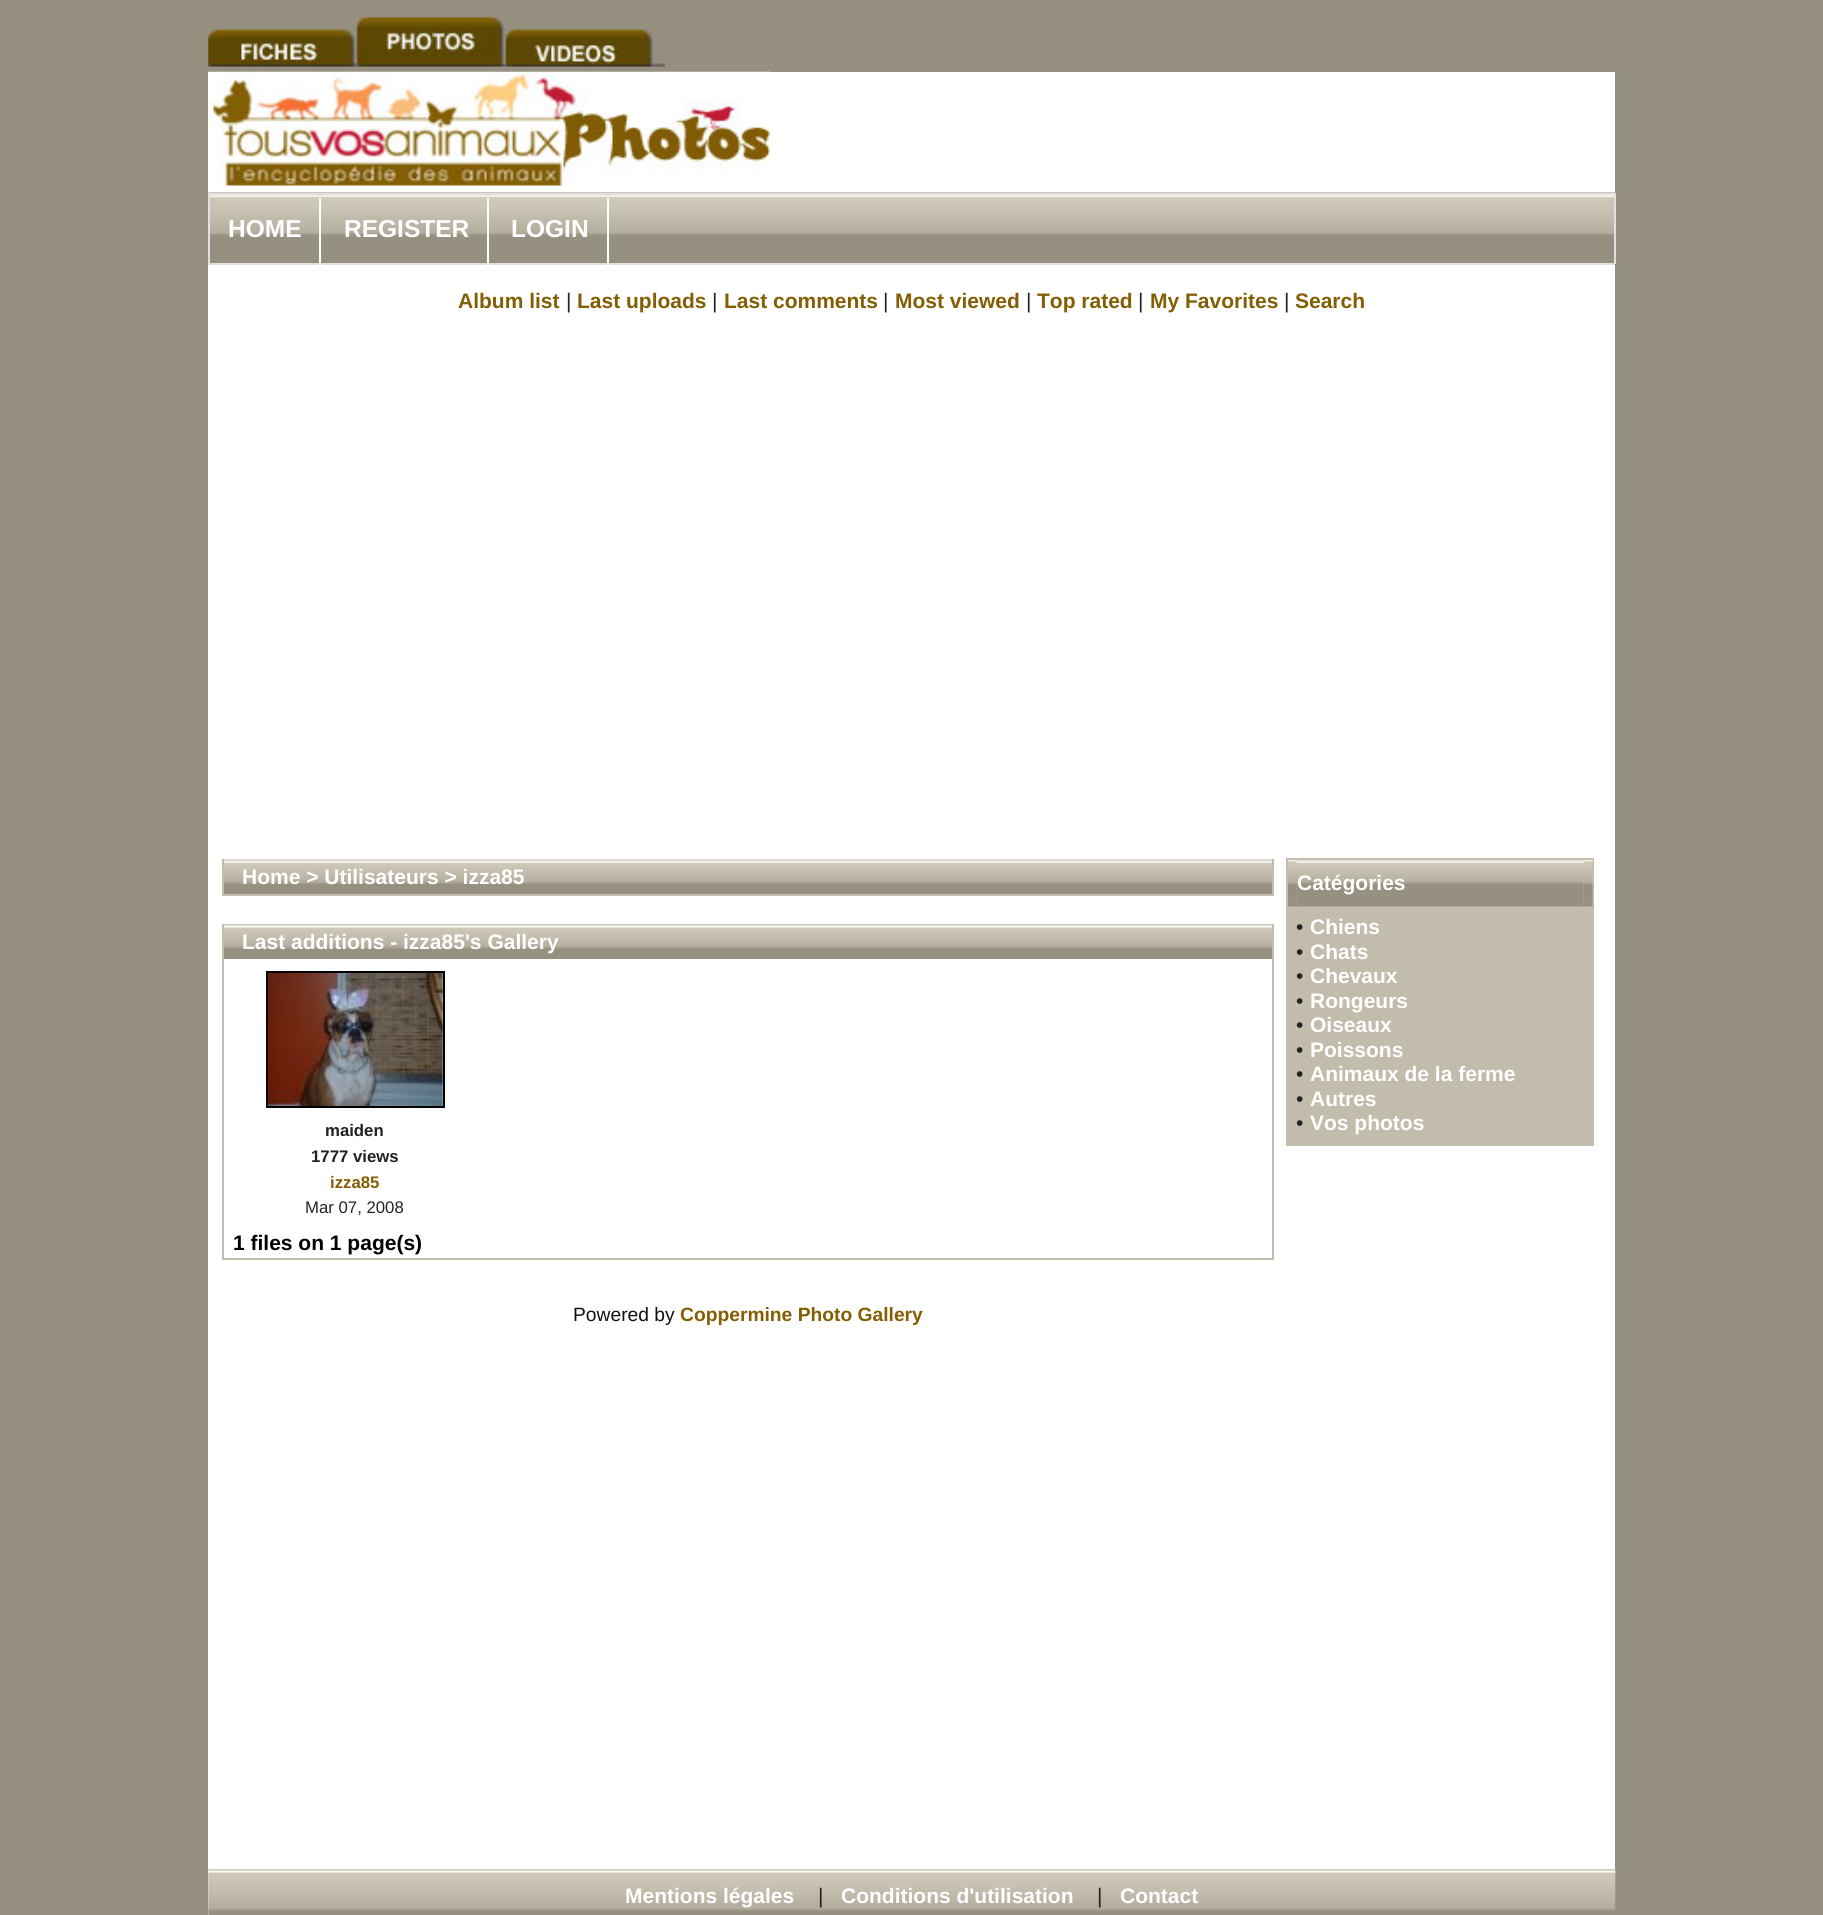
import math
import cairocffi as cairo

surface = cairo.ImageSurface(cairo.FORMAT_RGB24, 1823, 1915)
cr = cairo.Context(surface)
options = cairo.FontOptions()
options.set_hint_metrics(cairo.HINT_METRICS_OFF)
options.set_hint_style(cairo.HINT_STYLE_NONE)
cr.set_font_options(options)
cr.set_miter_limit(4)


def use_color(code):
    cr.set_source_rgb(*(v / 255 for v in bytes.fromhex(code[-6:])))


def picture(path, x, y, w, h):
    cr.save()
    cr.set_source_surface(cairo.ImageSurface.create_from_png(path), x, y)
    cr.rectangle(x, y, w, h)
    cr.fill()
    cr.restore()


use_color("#969080")
cr.paint()
use_color("#ffffff")
cr.rectangle(208, 72, 1407, 1843)
cr.fill()
picture("img1.png", 208, 14, 457, 53)
picture("img2.png", 208, 71, 562, 116)
picture("img3.png", 208, 192, 1408, 73)
use_color("#e0e0e0")
cr.rectangle(208, 193, 1407, 2)
cr.fill()
cr.rectangle(1614, 193, 2, 71)
cr.fill()
cr.rectangle(208, 263, 1407, 2)
cr.fill()
cr.rectangle(208, 193, 2, 71)
cr.fill()
cr.select_font_face("Liberation Sans", cairo.FONT_SLANT_NORMAL, cairo.FONT_WEIGHT_BOLD)
cr.set_font_size(24.5)
use_color("#ffffff")
cr.move_to(228, 237)
cr.show_text("HOME")
cr.rectangle(319, 198, 2, 67)
cr.fill()
cr.move_to(344, 237)
cr.show_text("REGISTER")
cr.rectangle(487, 198, 2, 67)
cr.fill()
cr.move_to(511, 237)
cr.show_text("LOGIN")
cr.rectangle(607, 198, 2, 67)
cr.fill()
cr.set_font_size(21)
use_color("#835e03")
cr.move_to(458, 308)
cr.show_text("Album list")
cr.select_font_face("Liberation Sans")
use_color("#222222")
cr.move_to(566, 308)
cr.show_text("|")
cr.select_font_face("Liberation Sans", cairo.FONT_SLANT_NORMAL, cairo.FONT_WEIGHT_BOLD)
use_color("#835e03")
cr.move_to(577, 308)
cr.show_text("Last uploads")
cr.select_font_face("Liberation Sans")
use_color("#222222")
cr.move_to(712, 308)
cr.show_text("|")
cr.select_font_face("Liberation Sans", cairo.FONT_SLANT_NORMAL, cairo.FONT_WEIGHT_BOLD)
use_color("#835e03")
cr.move_to(724, 308)
cr.show_text("Last comments")
cr.select_font_face("Liberation Sans")
use_color("#222222")
cr.move_to(883, 308)
cr.show_text("|")
cr.select_font_face("Liberation Sans", cairo.FONT_SLANT_NORMAL, cairo.FONT_WEIGHT_BOLD)
use_color("#835e03")
cr.move_to(895, 308)
cr.show_text("Most viewed")
cr.select_font_face("Liberation Sans")
use_color("#222222")
cr.move_to(1026, 308)
cr.show_text("|")
cr.select_font_face("Liberation Sans", cairo.FONT_SLANT_NORMAL, cairo.FONT_WEIGHT_BOLD)
use_color("#835e03")
cr.move_to(1037, 308)
cr.show_text("Top rated")
cr.select_font_face("Liberation Sans")
use_color("#222222")
cr.move_to(1138, 308)
cr.show_text("|")
cr.select_font_face("Liberation Sans", cairo.FONT_SLANT_NORMAL, cairo.FONT_WEIGHT_BOLD)
use_color("#835e03")
cr.move_to(1150, 308)
cr.show_text("My Favorites")
cr.select_font_face("Liberation Sans")
use_color("#222222")
cr.move_to(1284, 308)
cr.show_text("|")
cr.select_font_face("Liberation Sans", cairo.FONT_SLANT_NORMAL, cairo.FONT_WEIGHT_BOLD)
use_color("#835e03")
cr.move_to(1295, 308)
cr.show_text("Search")
use_color("#c2bcac")
cr.rectangle(1272, 859, 2, 37)
cr.fill()
cr.rectangle(222, 894, 1052, 2)
cr.fill()
cr.rectangle(222, 859, 2, 37)
cr.fill()
picture("img4.png", 224, 859, 1048, 35)
use_color("#ffffff")
cr.move_to(242, 884)
cr.show_text("Home > Utilisateurs > izza85")
use_color("#c2bcac")
cr.rectangle(1272, 924, 2, 336)
cr.fill()
cr.rectangle(222, 1258, 1052, 2)
cr.fill()
cr.rectangle(222, 924, 2, 336)
cr.fill()
picture("img5.png", 224, 924, 1048, 35)
use_color("#ffffff")
cr.move_to(242, 949)
cr.show_text("Last additions - izza85's Gallery")
cr.rectangle(267, 972, 177, 135)
use_color("#000000")
cr.stroke()
picture("img6.png", 267, 973, 176, 133)
cr.set_font_size(16.75)
use_color("#222222")
cr.move_to(325, 1136)
cr.show_text("maiden")
cr.move_to(311, 1162)
cr.show_text("1777 views")
use_color("#835e03")
cr.move_to(330, 1188)
cr.show_text("izza85")
cr.select_font_face("Liberation Sans")
use_color("#222222")
cr.move_to(305, 1213)
cr.show_text("Mar 07, 2008")
cr.select_font_face("Liberation Sans", cairo.FONT_SLANT_NORMAL, cairo.FONT_WEIGHT_BOLD)
cr.set_font_size(21)
use_color("#000000")
cr.move_to(233, 1250)
cr.show_text("1 files on 1 page(s)")
cr.select_font_face("Liberation Sans")
cr.set_font_size(19.25)
use_color("#111111")
cr.move_to(573, 1321)
cr.show_text("Powered by")
cr.select_font_face("Liberation Sans", cairo.FONT_SLANT_NORMAL, cairo.FONT_WEIGHT_BOLD)
use_color("#835e03")
cr.move_to(680, 1321)
cr.show_text("Coppermine Photo Gallery")
use_color("#c2bcac")
cr.rectangle(1286, 858, 308, 288)
cr.fill()
picture("img7.png", 1288, 859, 9, 48)
picture("img9.png", 1296, 859, 288, 48)
picture("img8.png", 1288, 860, 9, 41)
cr.set_font_size(21)
use_color("#ffffff")
cr.move_to(1297, 890)
cr.show_text("Catégories")
picture("img10.png", 1583, 859, 10, 48)
picture("img11.png", 1583, 860, 10, 41)
cr.select_font_face("Liberation Sans")
use_color("#222222")
cr.move_to(1296, 934)
cr.show_text("•")
cr.select_font_face("Liberation Sans", cairo.FONT_SLANT_NORMAL, cairo.FONT_WEIGHT_BOLD)
use_color("#ffffff")
cr.move_to(1310, 934)
cr.show_text("Chiens")
cr.select_font_face("Liberation Sans")
use_color("#222222")
cr.move_to(1296, 959)
cr.show_text("•")
cr.select_font_face("Liberation Sans", cairo.FONT_SLANT_NORMAL, cairo.FONT_WEIGHT_BOLD)
use_color("#ffffff")
cr.move_to(1310, 959)
cr.show_text("Chats")
cr.select_font_face("Liberation Sans")
use_color("#222222")
cr.move_to(1296, 983)
cr.show_text("•")
cr.select_font_face("Liberation Sans", cairo.FONT_SLANT_NORMAL, cairo.FONT_WEIGHT_BOLD)
use_color("#ffffff")
cr.move_to(1310, 983)
cr.show_text("Chevaux")
cr.select_font_face("Liberation Sans")
use_color("#222222")
cr.move_to(1296, 1008)
cr.show_text("•")
cr.select_font_face("Liberation Sans", cairo.FONT_SLANT_NORMAL, cairo.FONT_WEIGHT_BOLD)
use_color("#ffffff")
cr.move_to(1310, 1008)
cr.show_text("Rongeurs")
cr.select_font_face("Liberation Sans")
use_color("#222222")
cr.move_to(1296, 1032)
cr.show_text("•")
cr.select_font_face("Liberation Sans", cairo.FONT_SLANT_NORMAL, cairo.FONT_WEIGHT_BOLD)
use_color("#ffffff")
cr.move_to(1310, 1032)
cr.show_text("Oiseaux")
cr.select_font_face("Liberation Sans")
use_color("#222222")
cr.move_to(1296, 1057)
cr.show_text("•")
cr.select_font_face("Liberation Sans", cairo.FONT_SLANT_NORMAL, cairo.FONT_WEIGHT_BOLD)
use_color("#ffffff")
cr.move_to(1310, 1057)
cr.show_text("Poissons")
cr.select_font_face("Liberation Sans")
use_color("#222222")
cr.move_to(1296, 1081)
cr.show_text("•")
cr.select_font_face("Liberation Sans", cairo.FONT_SLANT_NORMAL, cairo.FONT_WEIGHT_BOLD)
use_color("#ffffff")
cr.move_to(1310, 1081)
cr.show_text("Animaux de la ferme")
cr.select_font_face("Liberation Sans")
use_color("#222222")
cr.move_to(1296, 1106)
cr.show_text("•")
cr.select_font_face("Liberation Sans", cairo.FONT_SLANT_NORMAL, cairo.FONT_WEIGHT_BOLD)
use_color("#ffffff")
cr.move_to(1310, 1106)
cr.show_text("Autres")
cr.select_font_face("Liberation Sans")
use_color("#222222")
cr.move_to(1296, 1130)
cr.show_text("•")
cr.select_font_face("Liberation Sans", cairo.FONT_SLANT_NORMAL, cairo.FONT_WEIGHT_BOLD)
use_color("#ffffff")
cr.move_to(1310, 1130)
cr.show_text("Vos photos")
picture("img12.png", 208, 1869, 1408, 46)
cr.move_to(625, 1903)
cr.show_text("Mentions légales")
cr.select_font_face("Liberation Sans")
use_color("#222222")
cr.move_to(818, 1903)
cr.show_text("|")
cr.select_font_face("Liberation Sans", cairo.FONT_SLANT_NORMAL, cairo.FONT_WEIGHT_BOLD)
use_color("#ffffff")
cr.move_to(841, 1903)
cr.show_text("Conditions d'utilisation")
cr.select_font_face("Liberation Sans")
use_color("#222222")
cr.move_to(1097, 1903)
cr.show_text("|")
cr.select_font_face("Liberation Sans", cairo.FONT_SLANT_NORMAL, cairo.FONT_WEIGHT_BOLD)
use_color("#ffffff")
cr.move_to(1120, 1903)
cr.show_text("Contact")
surface.write_to_png("result.png")
